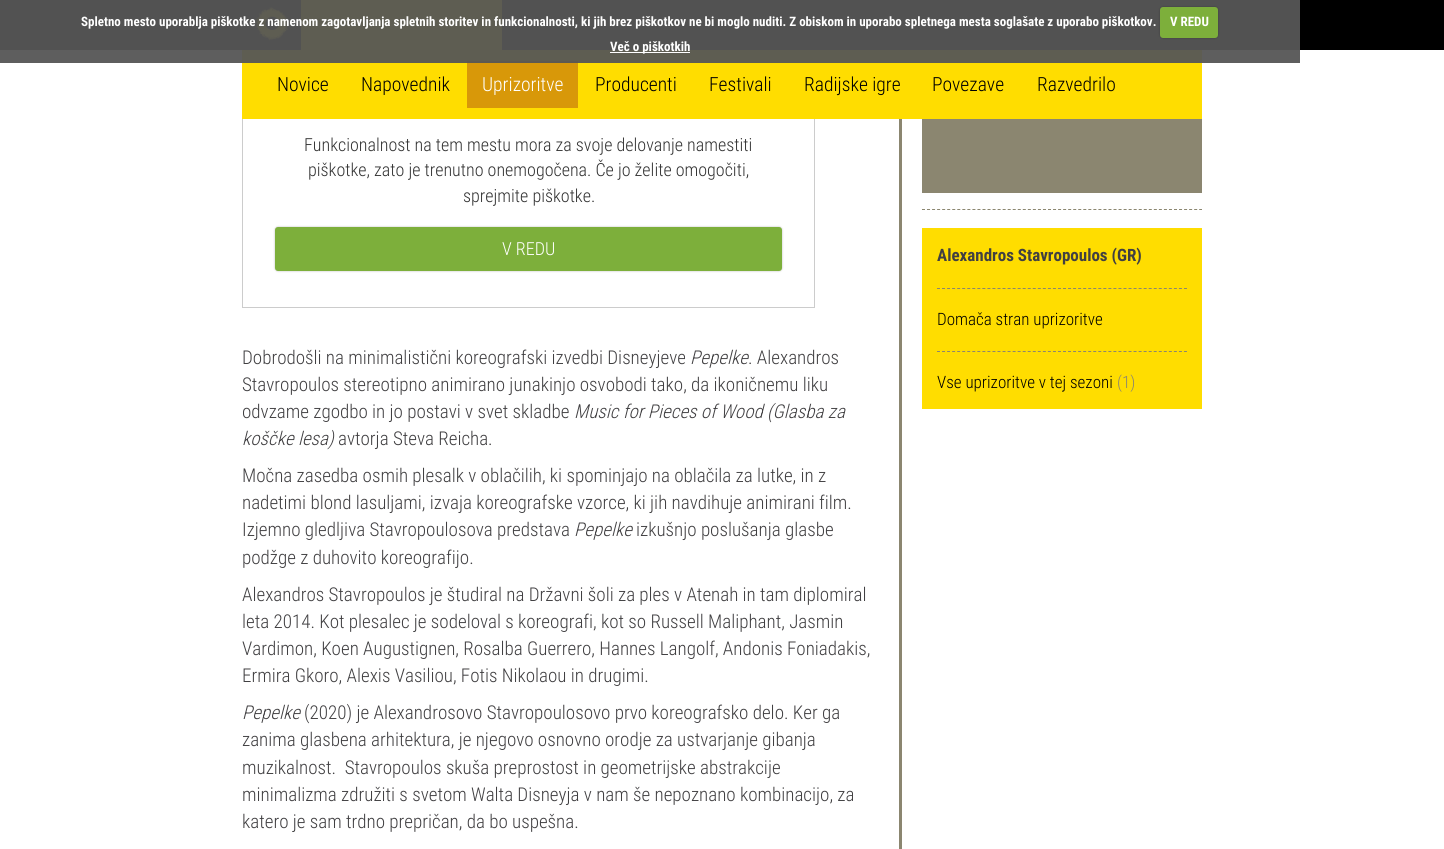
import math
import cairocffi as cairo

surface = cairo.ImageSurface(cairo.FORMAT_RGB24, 1444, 849)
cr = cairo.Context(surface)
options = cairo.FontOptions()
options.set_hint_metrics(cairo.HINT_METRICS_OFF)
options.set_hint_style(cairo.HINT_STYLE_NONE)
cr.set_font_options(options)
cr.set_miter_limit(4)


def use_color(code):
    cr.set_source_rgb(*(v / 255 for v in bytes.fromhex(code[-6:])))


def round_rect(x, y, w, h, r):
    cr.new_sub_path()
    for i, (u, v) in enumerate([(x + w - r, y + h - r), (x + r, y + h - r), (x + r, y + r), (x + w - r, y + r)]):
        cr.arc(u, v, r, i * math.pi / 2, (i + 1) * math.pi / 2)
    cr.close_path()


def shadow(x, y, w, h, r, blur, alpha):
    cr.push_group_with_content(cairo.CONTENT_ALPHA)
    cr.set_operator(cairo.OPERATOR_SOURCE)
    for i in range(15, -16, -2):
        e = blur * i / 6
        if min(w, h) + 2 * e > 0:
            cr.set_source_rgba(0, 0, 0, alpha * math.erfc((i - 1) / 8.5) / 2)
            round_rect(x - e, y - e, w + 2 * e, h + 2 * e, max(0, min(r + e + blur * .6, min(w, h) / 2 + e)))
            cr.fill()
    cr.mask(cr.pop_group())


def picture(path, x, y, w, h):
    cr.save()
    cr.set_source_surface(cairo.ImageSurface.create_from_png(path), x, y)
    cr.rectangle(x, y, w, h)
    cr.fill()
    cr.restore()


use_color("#ffffff")
cr.paint()
use_color("#5e5e5e")
cr.rectangle(0, 50, 1300, 13)
cr.fill()
use_color("#525252")
cr.rectangle(0, 0, 1300, 50)
cr.fill()
use_color("#5e5d52")
cr.rectangle(301, 0, 201, 50)
cr.fill()
picture("img1.png", 256, 7, 32, 34)
cr.select_font_face("Roboto Condensed", cairo.FONT_SLANT_NORMAL, cairo.FONT_WEIGHT_BOLD)
cr.set_font_size(13)
use_color("#ffffff")
cr.move_to(81, 26)
cr.show_text("Spletno mesto uporablja piškotke z namenom zagotavljanja spletnih storitev in funkcionalnosti, ki jih brez piškotkov ne bi moglo nuditi. Z obiskom in uporabo spletnega mesta soglašate z uporabo piškotkov.")
use_color("#000000")
shadow(1160, 7, 58, 31, 3, 1, 0.25)
use_color("#7daf3b")
round_rect(1160, 7, 58, 31, 3)
cr.fill()
use_color("#ffffff")
cr.move_to(1170, 26)
cr.show_text("V REDU")
use_color("#5e5d52")
cr.rectangle(242, 50, 960, 13)
cr.fill()
use_color("#ffffff")
cr.rectangle(610, 52, 80, 1)
cr.fill()
cr.move_to(610, 51)
cr.show_text("Več o piškotkih")
use_color("#000000")
cr.rectangle(1300, 0, 144, 50)
cr.fill()
cr.rectangle(242.5, 95.5, 572, 212)
use_color("#cccccc")
cr.set_line_width(1)
cr.stroke()
use_color("#ffdd00")
cr.rectangle(242, 63, 960, 56)
cr.fill()
cr.select_font_face("Roboto Condensed Light")
cr.set_font_size(19.5)
use_color("#000000")
cr.move_to(277, 91)
cr.show_text("Novice")
cr.move_to(361, 91)
cr.show_text("Napovednik")
use_color("#d89809")
cr.rectangle(467, 63, 111, 45)
cr.fill()
use_color("#5d5952")
cr.rectangle(467, 61, 111, 2)
cr.fill()
use_color("#ffffff")
cr.move_to(482, 91)
cr.show_text("Uprizoritve")
use_color("#000000")
cr.move_to(595, 91)
cr.show_text("Producenti")
cr.move_to(709, 91)
cr.show_text("Festivali")
cr.move_to(804, 91)
cr.show_text("Radijske igre")
cr.move_to(932, 91)
cr.show_text("Povezave")
cr.move_to(1037, 91)
cr.show_text("Razvedrilo")
use_color("#8b8670")
cr.rectangle(899, 119, 3, 730)
cr.fill()
cr.set_font_size(18)
use_color("#333333")
cr.move_to(304, 151)
cr.show_text("Funkcionalnost na tem mestu mora za svoje delovanje namestiti")
cr.move_to(308, 176)
cr.show_text("piškotke, zato je trenutno onemogočena. Če jo želite omogočiti,")
cr.move_to(463, 202)
cr.show_text("sprejmite piškotke.")
use_color("#000000")
shadow(275, 227, 507, 44, 3, 1, 0.25)
use_color("#7daf3b")
round_rect(275, 227, 507, 44, 3)
cr.fill()
use_color("#ffffff")
cr.move_to(502, 255)
cr.show_text("V REDU")
cr.set_font_size(19)
use_color("#414042")
cr.move_to(242, 364)
cr.show_text("Dobrodošli na minimalistični koreografski izvedbi Disneyjeve")
cr.select_font_face("Roboto Condensed Light", cairo.FONT_SLANT_ITALIC)
cr.move_to(690, 364)
cr.show_text("Pepelke")
cr.select_font_face("Roboto Condensed Light")
cr.move_to(748, 364)
cr.show_text(". Alexandros")
cr.move_to(242, 391)
cr.show_text("Stavropoulos stereotipno animirano junakinjo osvobodi tako, da ikoničnemu liku")
cr.move_to(242, 418)
cr.show_text("odvzame zgodbo in jo postavi v svet skladbe")
cr.select_font_face("Roboto Condensed Light", cairo.FONT_SLANT_ITALIC)
cr.move_to(574, 418)
cr.show_text("Music for Pieces of Wood (Glasba za")
cr.move_to(242, 445)
cr.show_text("koščke lesa)")
cr.select_font_face("Roboto Condensed Light")
cr.move_to(338, 445)
cr.show_text("avtorja Steva Reicha.")
cr.move_to(242, 482)
cr.show_text("Močna zasedba osmih plesalk v oblačilih, ki spominjajo na oblačila za lutke, in z")
cr.move_to(242, 509)
cr.show_text("nadetimi blond lasuljami, izvaja koreografske vzorce, ki jih navdihuje animirani film.")
cr.move_to(242, 536)
cr.show_text("Izjemno gledljiva Stavropoulosova predstava")
cr.select_font_face("Roboto Condensed Light", cairo.FONT_SLANT_ITALIC)
cr.move_to(574, 536)
cr.show_text("Pepelke")
cr.select_font_face("Roboto Condensed Light")
cr.move_to(636, 536)
cr.show_text("izkušnjo poslušanja glasbe")
cr.move_to(242, 564)
cr.show_text("podžge z duhovito koreografijo.")
cr.move_to(242, 601)
cr.show_text("Alexandros Stavropoulos je študiral na Državni šoli za ples v Atenah in tam diplomiral")
cr.move_to(242, 628)
cr.show_text("leta 2014. Kot plesalec je sodeloval s koreografi, kot so Russell Maliphant, Jasmin")
cr.move_to(242, 655)
cr.show_text("Vardimon, Koen Augustignen, Rosalba Guerrero, Hannes Langolf, Andonis Foniadakis,")
cr.move_to(242, 682)
cr.show_text("Ermira Gkoro, Alexis Vasiliou, Fotis Nikolaou in drugimi.")
cr.select_font_face("Roboto Condensed Light", cairo.FONT_SLANT_ITALIC)
cr.move_to(242, 719)
cr.show_text("Pepelke")
cr.select_font_face("Roboto Condensed Light")
cr.move_to(304, 719)
cr.show_text("(2020) je Alexandrosovo Stavropoulosovo prvo koreografsko delo. Ker ga")
cr.move_to(242, 746)
cr.show_text("zanima glasbena arhitektura, je njegovo osnovno orodje za ustvarjanje gibanja")
cr.move_to(242, 774)
cr.show_text("muzikalnost.  Stavropoulos skuša preprostost in geometrijske abstrakcije")
cr.move_to(242, 801)
cr.show_text("minimalizma združiti s svetom Walta Disneyja v nam še nepoznano kombinacijo, za")
cr.move_to(242, 828)
cr.show_text("katero je sam trdno prepričan, da bo uspešna.")
use_color("#8b8670")
cr.rectangle(922, 119, 280, 74)
cr.fill()
cr.new_path()
cr.move_to(922, 209.5)
cr.line_to(1202, 209.5)
cr.set_dash([3, 2.04])
cr.stroke()
use_color("#ffdd00")
cr.rectangle(922, 228, 280, 181)
cr.fill()
cr.select_font_face("Roboto Condensed", cairo.FONT_SLANT_NORMAL, cairo.FONT_WEIGHT_BOLD)
cr.set_font_size(17)
use_color("#414042")
cr.move_to(937, 261)
cr.show_text("Alexandros Stavropoulos (GR)")
cr.new_path()
cr.move_to(937, 288.5)
cr.line_to(1187, 288.5)
use_color("#8b8670")
cr.stroke()
cr.select_font_face("Roboto Condensed Light")
use_color("#000000")
cr.move_to(937, 325)
cr.show_text("Domača stran uprizoritve")
cr.new_path()
cr.move_to(937, 351.5)
cr.line_to(1187, 351.5)
use_color("#8b8670")
cr.stroke()
use_color("#000000")
cr.move_to(937, 388)
cr.show_text("Vse uprizoritve v tej sezoni")
use_color("#8b8670")
cr.move_to(1117, 388)
cr.show_text("(1)")
surface.write_to_png("result.png")
